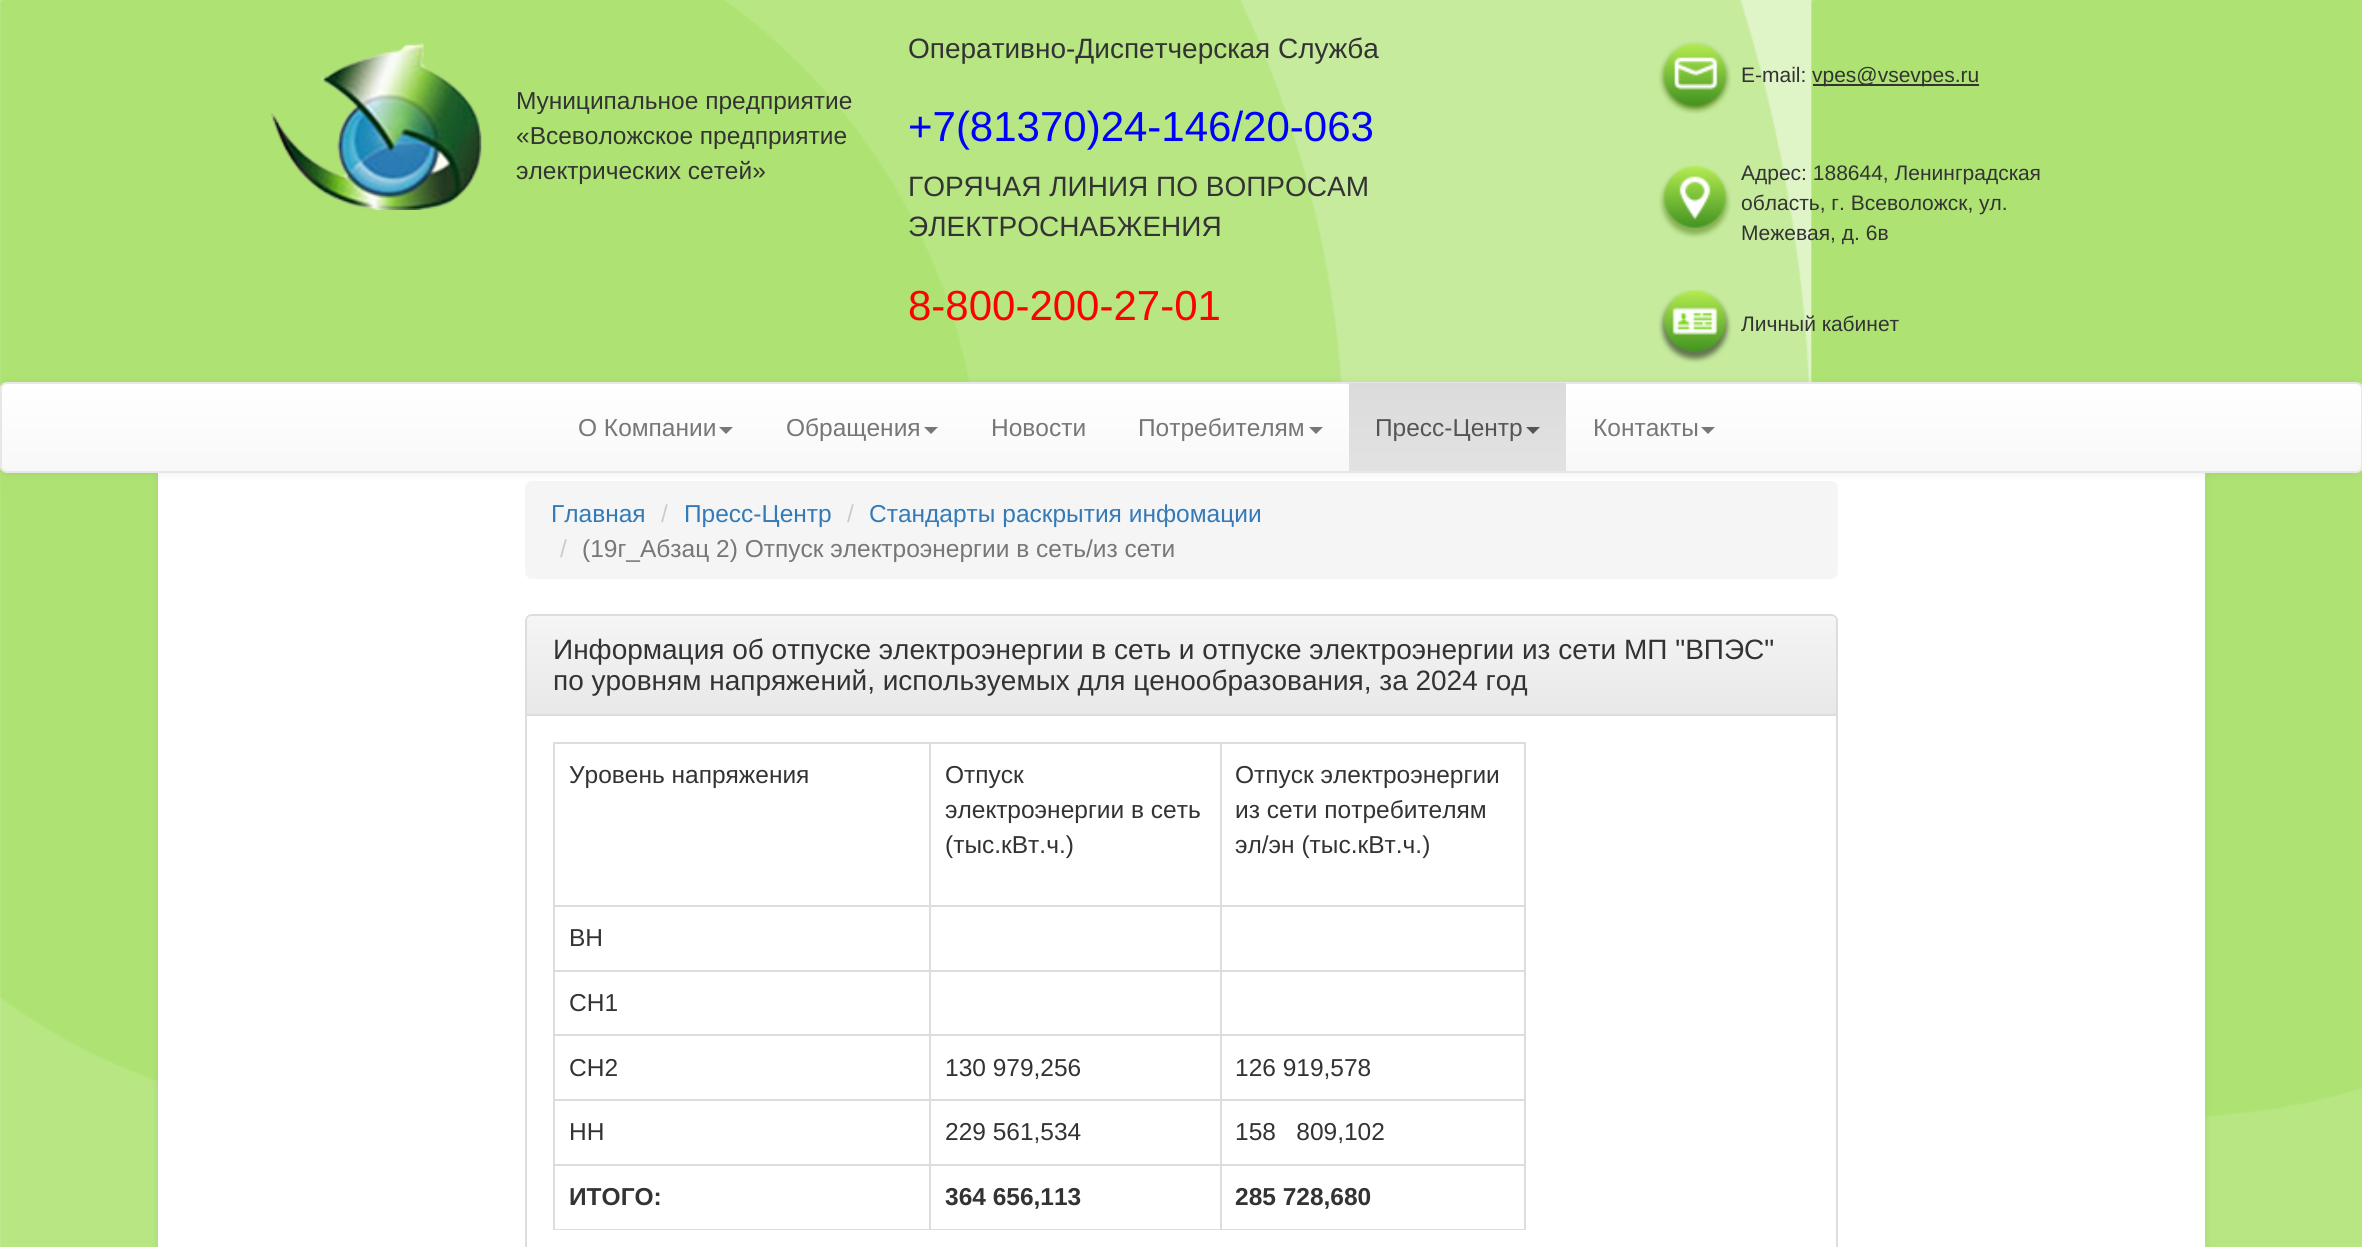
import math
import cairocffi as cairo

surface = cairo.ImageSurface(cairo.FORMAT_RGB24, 2362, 1247)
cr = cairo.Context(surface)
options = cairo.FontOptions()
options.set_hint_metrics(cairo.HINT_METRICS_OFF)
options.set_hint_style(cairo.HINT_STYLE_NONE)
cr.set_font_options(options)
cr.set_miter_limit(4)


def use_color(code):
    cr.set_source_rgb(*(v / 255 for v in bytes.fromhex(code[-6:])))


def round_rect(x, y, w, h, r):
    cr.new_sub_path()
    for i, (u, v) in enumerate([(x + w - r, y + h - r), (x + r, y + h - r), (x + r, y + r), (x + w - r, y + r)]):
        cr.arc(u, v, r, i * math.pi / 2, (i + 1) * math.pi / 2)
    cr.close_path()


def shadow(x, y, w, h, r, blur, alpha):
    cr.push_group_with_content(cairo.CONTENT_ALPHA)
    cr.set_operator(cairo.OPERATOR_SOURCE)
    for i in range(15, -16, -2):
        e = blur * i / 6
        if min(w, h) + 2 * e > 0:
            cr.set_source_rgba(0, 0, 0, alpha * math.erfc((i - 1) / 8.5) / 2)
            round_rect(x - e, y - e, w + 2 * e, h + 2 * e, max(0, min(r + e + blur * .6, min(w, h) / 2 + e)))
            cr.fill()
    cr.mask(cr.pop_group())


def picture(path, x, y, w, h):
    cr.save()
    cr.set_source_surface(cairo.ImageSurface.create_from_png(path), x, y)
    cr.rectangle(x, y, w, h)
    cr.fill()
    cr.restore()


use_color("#ffffff")
cr.paint()
picture("img1.png", 0, 0, 2362, 1247)
picture("img2.png", 271, 43, 211, 167)
cr.select_font_face("Liberation Sans")
cr.set_font_size(24.5)
use_color("#333333")
cr.move_to(516, 109)
cr.show_text("Муниципальное предприятие")
cr.move_to(516, 144)
cr.show_text("«Всеволожское предприятие")
cr.move_to(516, 179)
cr.show_text("электрических сетей»")
cr.set_font_size(28)
cr.move_to(908, 58)
cr.show_text("Оперативно-Диспетчерская Служба")
cr.set_font_size(42)
use_color("#0000ff")
cr.move_to(908, 141)
cr.show_text("+7(81370)24-146/20-063")
cr.set_font_size(28)
use_color("#333333")
cr.move_to(908, 196)
cr.show_text("ГОРЯЧАЯ ЛИНИЯ ПО ВОПРОСАМ")
cr.move_to(908, 236)
cr.show_text("ЭЛЕКТРОСНАБЖЕНИЯ")
cr.set_font_size(42)
use_color("#ff0000")
cr.move_to(908, 320)
cr.show_text("8-800-200-27-01")
picture("img3.png", 1658, 41, 73, 73)
cr.set_font_size(21)
use_color("#333333")
cr.move_to(1741, 82)
cr.show_text("E-mail:")
cr.rectangle(1813, 84, 166, 2)
cr.fill()
cr.move_to(1812, 82)
cr.show_text("vpes@vsevpes.ru")
picture("img4.png", 1659, 165, 72, 74)
cr.move_to(1741, 180)
cr.show_text("Адрес: 188644, Ленинградская")
cr.move_to(1741, 210)
cr.show_text("область, г. Всеволожск, ул.")
cr.move_to(1741, 240)
cr.show_text("Межевая, д. 6в")
picture("img5.png", 1658, 290, 74, 73)
cr.move_to(1741, 331)
cr.show_text("Личный кабинет")
use_color("#000000")
shadow(158, 474, 2047, 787, 0, 4.5, 0.07)
use_color("#ffffff")
cr.rectangle(158, 473, 2047, 774)
cr.fill()
use_color("#000000")
shadow(0, 383, 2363, 91, 7, 4.5, 0.07)
cr.save()
round_rect(0, 382, 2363, 91, 7)
cr.clip()
gradient = cairo.LinearGradient(1181, 383, 1181, 471)
gradient.add_color_stop_rgba(0, 1, 1, 1, 1)
gradient.add_color_stop_rgba(1, 0.973, 0.973, 0.973, 1)
cr.set_source(gradient)
cr.rectangle(0, 383, 2362, 88)
cr.fill()
cr.restore()
round_rect(1, 383, 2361, 89, 6)
use_color("#e7e7e7")
cr.stroke()
cr.set_font_size(24.5)
use_color("#777777")
cr.move_to(578, 436)
cr.show_text("О Компании")
cr.new_path()
cr.move_to(719, 427)
cr.line_to(733, 427)
cr.line_to(726, 434)
cr.close_path()
cr.fill()
cr.move_to(786, 436)
cr.show_text("Обращения")
cr.new_path()
cr.move_to(924, 427)
cr.line_to(938, 427)
cr.line_to(931, 434)
cr.close_path()
cr.fill()
cr.move_to(991, 436)
cr.show_text("Новости")
cr.move_to(1138, 436)
cr.show_text("Потребителям")
cr.new_path()
cr.move_to(1309, 427)
cr.line_to(1323, 427)
cr.line_to(1316, 434)
cr.close_path()
cr.fill()
gradient = cairo.LinearGradient(1458, 383, 1458, 471)
gradient.add_color_stop_rgba(0, 0.859, 0.859, 0.859, 1)
gradient.add_color_stop_rgba(1, 0.886, 0.886, 0.886, 1)
cr.set_source(gradient)
cr.rectangle(1349, 383, 217, 88)
cr.fill()
use_color("#555555")
cr.move_to(1375, 436)
cr.show_text("Пресс-Центр")
cr.new_path()
cr.move_to(1526, 427)
cr.line_to(1540, 427)
cr.line_to(1533, 434)
cr.close_path()
cr.fill()
use_color("#777777")
cr.move_to(1593, 436)
cr.show_text("Контакты")
cr.new_path()
cr.move_to(1701, 427)
cr.line_to(1715, 427)
cr.line_to(1708, 434)
cr.close_path()
cr.fill()
use_color("#f5f5f5")
round_rect(525, 481, 1313, 98, 7)
cr.fill()
use_color("#337ab7")
cr.move_to(551, 522)
cr.show_text("Главная")
use_color("#cccccc")
cr.move_to(661, 522)
cr.show_text("/")
use_color("#337ab7")
cr.move_to(684, 522)
cr.show_text("Пресс-Центр")
use_color("#cccccc")
cr.move_to(847, 522)
cr.show_text("/")
use_color("#337ab7")
cr.move_to(869, 522)
cr.show_text("Стандарты раскрытия инфомации")
use_color("#cccccc")
cr.move_to(560, 557)
cr.show_text("/")
use_color("#777777")
cr.move_to(582, 557)
cr.show_text("(19г_Абзац 2) Отпуск электроэнергии в сеть/из сети")
round_rect(526, 615, 1311, 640, 6)
use_color("#dddddd")
cr.stroke()
gradient = cairo.LinearGradient(1181, 616, 1181, 714)
gradient.add_color_stop_rgba(0, 0.961, 0.961, 0.961, 1)
gradient.add_color_stop_rgba(1, 0.91, 0.91, 0.91, 1)
cr.set_source(gradient)
cr.new_path()
cr.move_to(532, 616)
cr.line_to(1831, 616)
cr.curve_to(1834, 616, 1836, 618, 1836, 621)
cr.line_to(1836, 714)
cr.line_to(527, 714)
cr.line_to(527, 621)
cr.curve_to(527, 618, 529, 616, 532, 616)
cr.close_path()
cr.fill()
cr.set_font_size(28)
use_color("#333333")
cr.move_to(553, 659)
cr.show_text("Информация об отпуске электроэнергии в сеть и отпуске электроэнергии из сети МП \"ВПЭС\"")
cr.move_to(553, 690)
cr.show_text("по уровням напряжений, используемых для ценообразования, за 2024 год")
use_color("#dddddd")
cr.rectangle(527, 714, 1309, 2)
cr.fill()
cr.rectangle(553, 742, 973, 2)
cr.fill()
cr.rectangle(1524, 905, 2, 325)
cr.fill()
cr.rectangle(1524, 742, 2, 165)
cr.fill()
cr.rectangle(1220, 1229, 306, 1)
cr.fill()
cr.rectangle(1220, 1164, 2, 66)
cr.fill()
cr.rectangle(1220, 1164, 306, 2)
cr.fill()
cr.rectangle(1220, 1099, 2, 67)
cr.fill()
cr.rectangle(1220, 1099, 306, 2)
cr.fill()
cr.rectangle(1220, 1034, 2, 67)
cr.fill()
cr.rectangle(1220, 1034, 306, 2)
cr.fill()
cr.rectangle(1220, 970, 2, 66)
cr.fill()
cr.rectangle(1220, 970, 306, 2)
cr.fill()
cr.rectangle(1220, 905, 2, 66)
cr.fill()
cr.rectangle(1220, 905, 306, 2)
cr.fill()
cr.rectangle(1220, 742, 2, 165)
cr.fill()
cr.rectangle(929, 1229, 293, 1)
cr.fill()
cr.rectangle(929, 1164, 2, 66)
cr.fill()
cr.rectangle(929, 1164, 293, 2)
cr.fill()
cr.rectangle(929, 1099, 2, 67)
cr.fill()
cr.rectangle(929, 1099, 293, 2)
cr.fill()
cr.rectangle(929, 1034, 2, 67)
cr.fill()
cr.rectangle(929, 1034, 293, 2)
cr.fill()
cr.rectangle(929, 970, 2, 66)
cr.fill()
cr.rectangle(929, 970, 293, 2)
cr.fill()
cr.rectangle(929, 905, 2, 66)
cr.fill()
cr.rectangle(929, 905, 293, 2)
cr.fill()
cr.rectangle(929, 742, 2, 165)
cr.fill()
cr.rectangle(553, 1229, 378, 1)
cr.fill()
cr.rectangle(553, 1164, 2, 66)
cr.fill()
cr.rectangle(553, 1164, 378, 2)
cr.fill()
cr.rectangle(553, 1099, 2, 67)
cr.fill()
cr.rectangle(553, 1099, 378, 2)
cr.fill()
cr.rectangle(553, 1034, 2, 67)
cr.fill()
cr.rectangle(553, 1034, 378, 2)
cr.fill()
cr.rectangle(553, 970, 2, 66)
cr.fill()
cr.rectangle(553, 970, 378, 2)
cr.fill()
cr.rectangle(553, 905, 2, 66)
cr.fill()
cr.rectangle(553, 905, 378, 2)
cr.fill()
cr.rectangle(553, 742, 2, 165)
cr.fill()
cr.set_font_size(24.5)
use_color("#333333")
cr.move_to(569, 783)
cr.show_text("Уровень напряжения")
cr.move_to(945, 783)
cr.show_text("Отпуск")
cr.move_to(945, 818)
cr.show_text("электроэнергии в сеть")
cr.move_to(945, 853)
cr.show_text("(тыс.кВт.ч.)")
cr.move_to(1235, 783)
cr.show_text("Отпуск электроэнергии")
cr.move_to(1235, 818)
cr.show_text("из сети потребителям")
cr.move_to(1235, 853)
cr.show_text("эл/эн (тыс.кВт.ч.)")
cr.move_to(569, 946)
cr.show_text("ВН")
cr.move_to(569, 1011)
cr.show_text("СН1")
cr.move_to(569, 1076)
cr.show_text("СН2")
cr.move_to(945, 1076)
cr.show_text("130 979,256")
cr.move_to(1235, 1076)
cr.show_text("126 919,578")
cr.move_to(569, 1140)
cr.show_text("НН")
cr.move_to(945, 1140)
cr.show_text("229 561,534")
cr.move_to(1235, 1140)
cr.show_text("158   809,102")
cr.select_font_face("Liberation Sans", cairo.FONT_SLANT_NORMAL, cairo.FONT_WEIGHT_BOLD)
cr.move_to(569, 1205)
cr.show_text("ИТОГО:")
cr.move_to(945, 1205)
cr.show_text("364 656,113")
cr.move_to(1235, 1205)
cr.show_text("285 728,680")
surface.write_to_png("result.png")
